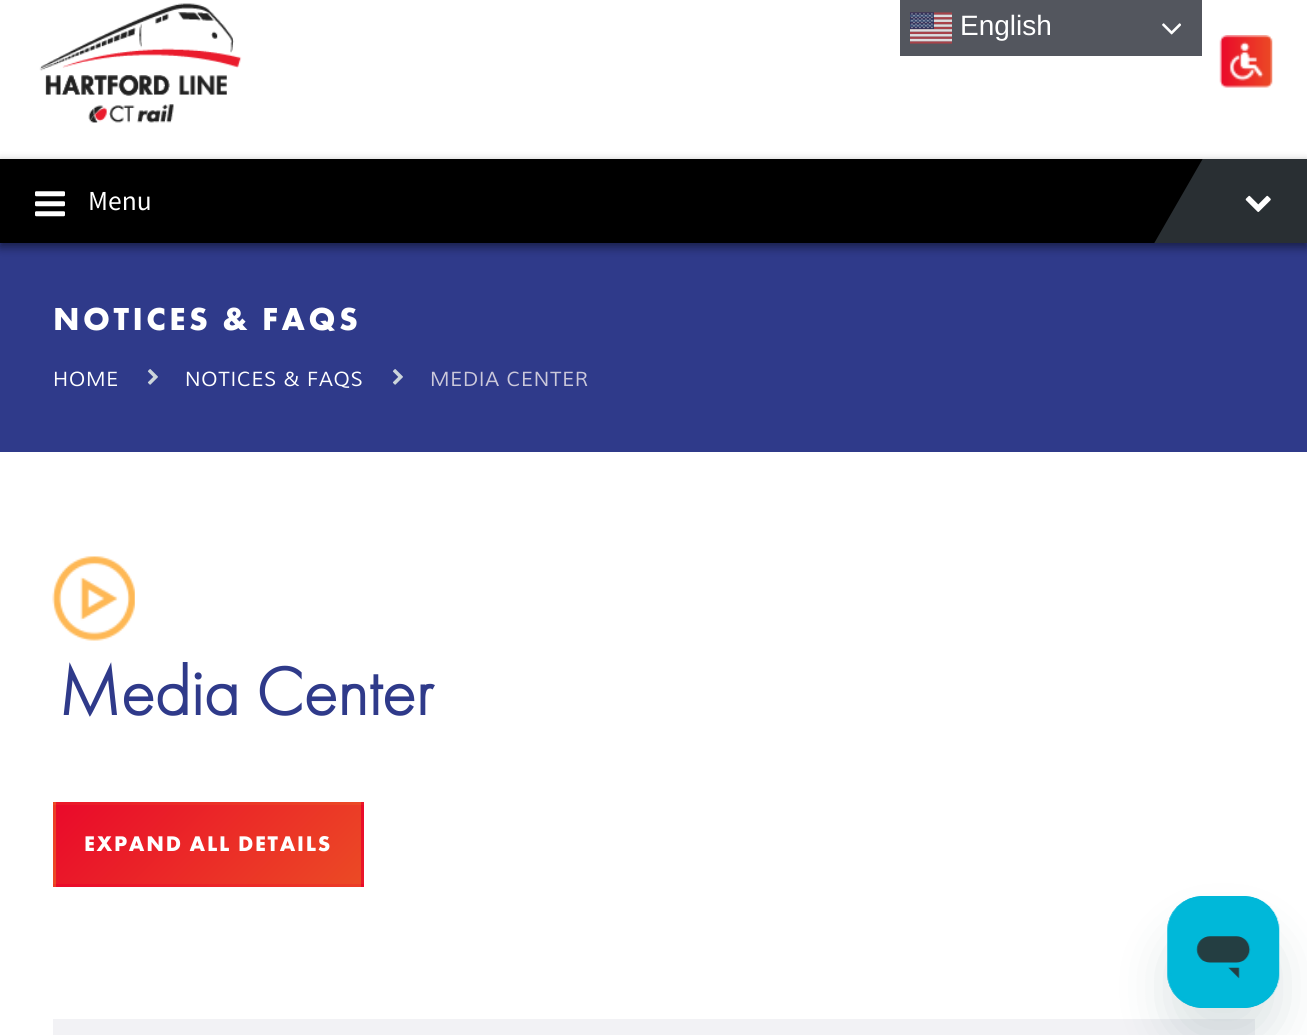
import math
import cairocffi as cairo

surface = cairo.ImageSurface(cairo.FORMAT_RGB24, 1307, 1035)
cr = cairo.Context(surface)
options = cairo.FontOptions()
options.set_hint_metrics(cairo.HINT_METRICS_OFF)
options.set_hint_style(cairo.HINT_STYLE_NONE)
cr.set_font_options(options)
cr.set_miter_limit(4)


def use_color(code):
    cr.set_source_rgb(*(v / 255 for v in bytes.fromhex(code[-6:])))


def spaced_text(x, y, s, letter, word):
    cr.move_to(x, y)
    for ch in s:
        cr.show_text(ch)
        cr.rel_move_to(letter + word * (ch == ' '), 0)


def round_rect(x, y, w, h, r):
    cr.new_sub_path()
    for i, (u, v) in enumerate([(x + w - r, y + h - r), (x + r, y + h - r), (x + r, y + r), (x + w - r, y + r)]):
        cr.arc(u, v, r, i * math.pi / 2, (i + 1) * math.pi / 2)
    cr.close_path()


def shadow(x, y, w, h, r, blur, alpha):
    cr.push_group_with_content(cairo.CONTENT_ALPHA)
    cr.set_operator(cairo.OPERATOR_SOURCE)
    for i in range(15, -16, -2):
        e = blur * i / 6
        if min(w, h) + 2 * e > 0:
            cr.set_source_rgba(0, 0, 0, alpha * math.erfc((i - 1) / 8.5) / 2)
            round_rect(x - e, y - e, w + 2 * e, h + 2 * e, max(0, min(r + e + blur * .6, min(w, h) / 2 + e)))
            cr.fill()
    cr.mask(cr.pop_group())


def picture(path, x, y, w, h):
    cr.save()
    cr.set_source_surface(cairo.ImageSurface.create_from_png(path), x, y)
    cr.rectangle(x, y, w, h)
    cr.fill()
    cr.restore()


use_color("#ffffff")
cr.paint()
use_color("#53565e")
cr.rectangle(900, 0, 302, 56)
cr.fill()
picture("img1.png", 910, 12, 42, 32)
cr.select_font_face("Liberation Sans")
cr.set_font_size(28)
use_color("#ffffff")
cr.move_to(960, 35)
cr.show_text("English")
picture("img2.png", 1162, 23, 19, 12)
picture("img3.png", 39, 3, 203, 120)
picture("img4.png", 1219, 35, 54, 53)
use_color("#2f3a8a")
cr.rectangle(0, 243, 1307, 209)
cr.fill()
use_color("#000000")
shadow(0, 163, 1307, 84, 0, 5, 0.5)
use_color("#000000")
cr.rectangle(0, 159, 1203, 84)
cr.fill()
picture("img5.png", 35, 191, 30, 26)
cr.select_font_face("Source Sans Pro")
cr.set_font_size(27.5)
use_color("#ffffff")
cr.move_to(88, 210)
cr.show_text("Menu")
cr.save()
cr.rectangle(0, 159, 1307, 84)
cr.clip()
use_color("#292f33")
cr.new_path()
cr.move_to(1236, 101)
cr.line_to(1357, 171)
cr.line_to(1273, 317)
cr.line_to(1152, 247)
cr.close_path()
cr.fill()
cr.restore()
picture("img6.png", 1245, 195, 26, 17)
cr.select_font_face("Futura PT", cairo.FONT_SLANT_NORMAL, cairo.FONT_WEIGHT_BOLD)
cr.set_font_size(33)
spaced_text(53, 330, "NOTICES & FAQS", 3.5, 0)
cr.select_font_face("Muli", cairo.FONT_SLANT_ITALIC)
cr.set_font_size(20)
spaced_text(53, 386, "HOME", 0.75, 0)
picture("img7.png", 147, 369, 11, 16)
spaced_text(185, 386, "NOTICES & FAQS", 0.75, 0)
picture("img7.png", 392, 369, 11, 16)
use_color("#ccc9db")
spaced_text(430, 386, "MEDIA CENTER", 0.75, 0)
picture("img8.png", 52, 556, 83, 85)
cr.select_font_face("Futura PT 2", cairo.FONT_SLANT_NORMAL, cairo.FONT_WEIGHT_BOLD)
cr.set_font_size(70)
use_color("#2f3a8a")
cr.move_to(58, 715)
cr.show_text("Media Center")
gradient = cairo.LinearGradient(-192, 670, -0.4, 861)
gradient.add_color_stop_rgba(0, 0.918, 0.039, 0.165, 1)
gradient.add_color_stop_rgba(1, 0.922, 0.29, 0.145, 1)
cr.set_source(gradient)
cr.rectangle(53, 802, 3, 3)
cr.fill()
gradient = cairo.LinearGradient(112, 670, 304, 861)
gradient.add_color_stop_rgba(0, 0.918, 0.039, 0.165, 1)
gradient.add_color_stop_rgba(1, 0.922, 0.29, 0.145, 1)
cr.set_source(gradient)
cr.rectangle(56, 802, 305, 3)
cr.fill()
gradient = cairo.LinearGradient(417, 670, 609, 861)
gradient.add_color_stop_rgba(0, 0.918, 0.039, 0.165, 1)
gradient.add_color_stop_rgba(1, 0.922, 0.29, 0.145, 1)
cr.set_source(gradient)
cr.rectangle(361, 802, 3, 3)
cr.fill()
gradient = cairo.LinearGradient(-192, 749, -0.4, 940)
gradient.add_color_stop_rgba(0, 0.918, 0.039, 0.165, 1)
gradient.add_color_stop_rgba(1, 0.922, 0.29, 0.145, 1)
cr.set_source(gradient)
cr.rectangle(53, 805, 3, 79)
cr.fill()
gradient = cairo.LinearGradient(112, 749, 304, 940)
gradient.add_color_stop_rgba(0, 0.918, 0.039, 0.165, 1)
gradient.add_color_stop_rgba(1, 0.922, 0.29, 0.145, 1)
cr.set_source(gradient)
cr.rectangle(56, 805, 305, 79)
cr.fill()
gradient = cairo.LinearGradient(417, 749, 609, 940)
gradient.add_color_stop_rgba(0, 0.918, 0.039, 0.165, 1)
gradient.add_color_stop_rgba(1, 0.922, 0.29, 0.145, 1)
cr.set_source(gradient)
cr.rectangle(361, 805, 3, 79)
cr.fill()
gradient = cairo.LinearGradient(-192, 827, -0.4, 1019)
gradient.add_color_stop_rgba(0, 0.918, 0.039, 0.165, 1)
gradient.add_color_stop_rgba(1, 0.922, 0.29, 0.145, 1)
cr.set_source(gradient)
cr.rectangle(53, 884, 3, 3)
cr.fill()
gradient = cairo.LinearGradient(112, 827, 304, 1019)
gradient.add_color_stop_rgba(0, 0.918, 0.039, 0.165, 1)
gradient.add_color_stop_rgba(1, 0.922, 0.29, 0.145, 1)
cr.set_source(gradient)
cr.rectangle(56, 884, 305, 3)
cr.fill()
gradient = cairo.LinearGradient(417, 827, 609, 1019)
gradient.add_color_stop_rgba(0, 0.918, 0.039, 0.165, 1)
gradient.add_color_stop_rgba(1, 0.922, 0.29, 0.145, 1)
cr.set_source(gradient)
cr.rectangle(361, 884, 3, 3)
cr.fill()
cr.select_font_face("Futura PT", cairo.FONT_SLANT_NORMAL, cairo.FONT_WEIGHT_BOLD)
cr.set_font_size(22)
use_color("#ffffff")
spaced_text(84, 851, "EXPAND ALL DETAILS", 1.75, 0)
use_color("#f2f2f5")
cr.rectangle(53, 1019, 1202, 16)
cr.fill()
use_color("#17494d")
shadow(1167, 931, 112, 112, 35, 26, 0.15)
picture("img9.png", 1167, 896, 113, 112)
surface.write_to_png("result.png")
